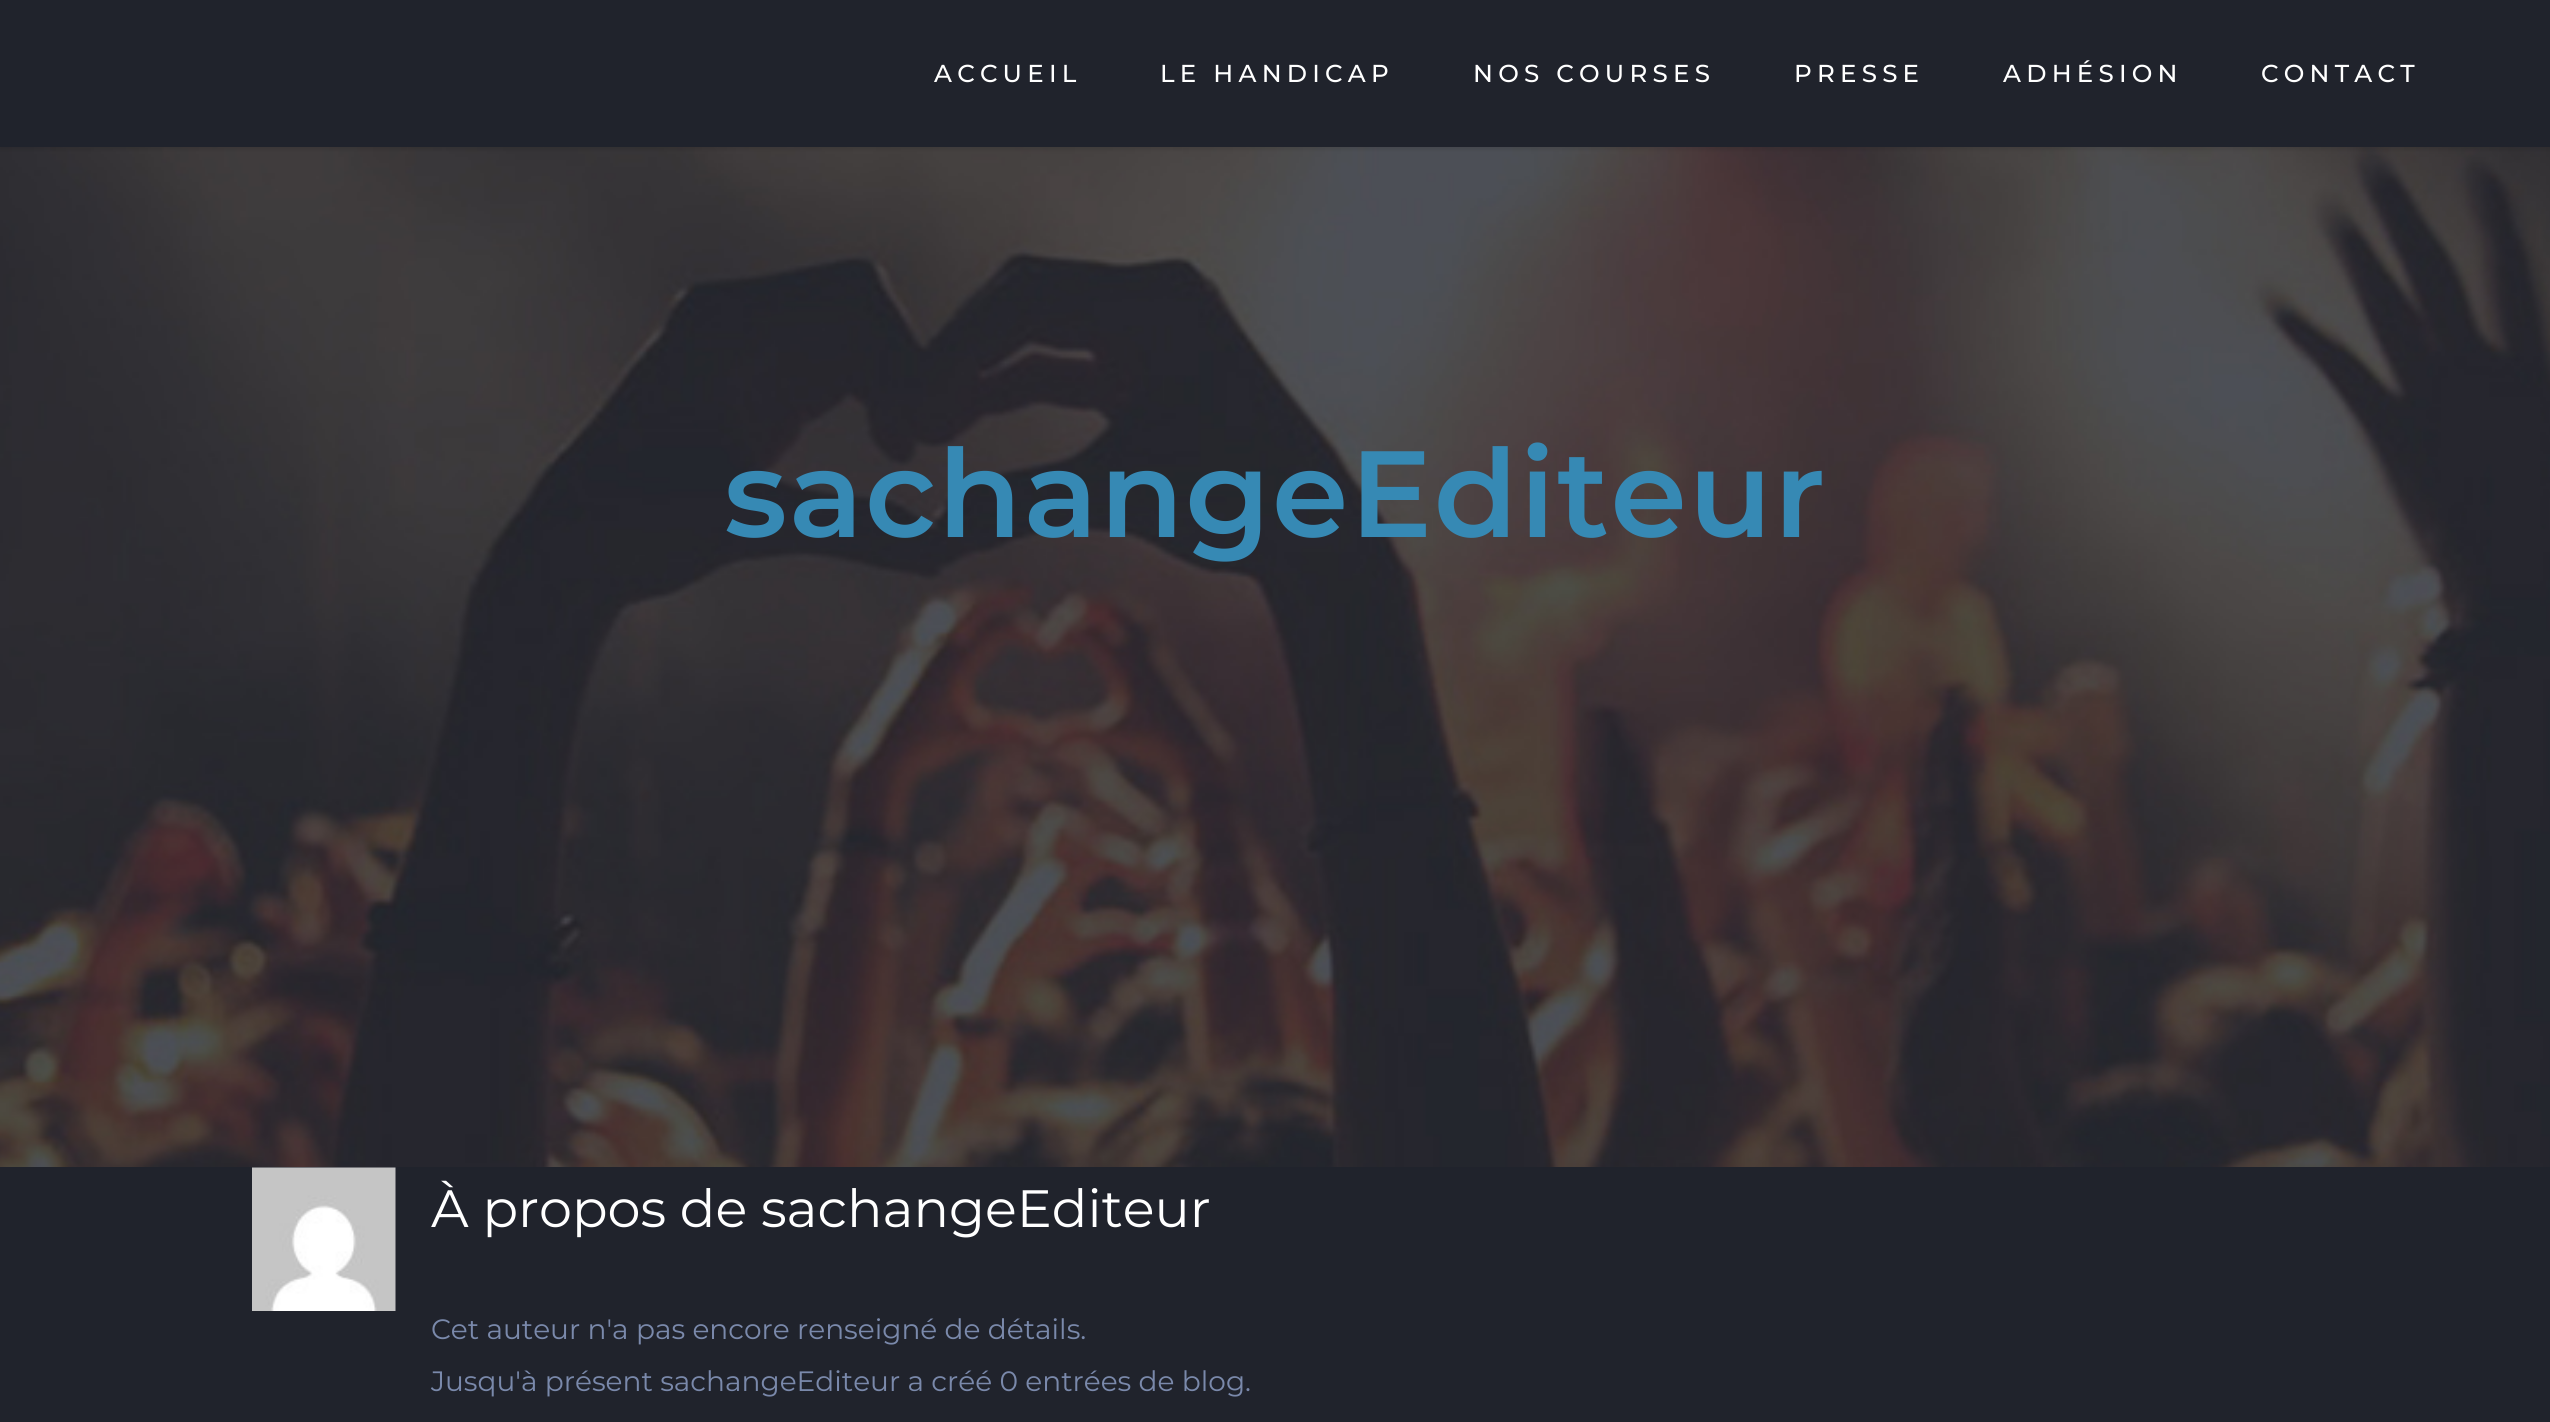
import math
import cairocffi as cairo

surface = cairo.ImageSurface(cairo.FORMAT_RGB24, 2550, 1422)
cr = cairo.Context(surface)
options = cairo.FontOptions()
options.set_hint_metrics(cairo.HINT_METRICS_OFF)
options.set_hint_style(cairo.HINT_STYLE_NONE)
cr.set_font_options(options)
cr.set_miter_limit(4)


def use_color(code):
    cr.set_source_rgb(*(v / 255 for v in bytes.fromhex(code[-6:])))


def spaced_text(x, y, s, letter, word):
    cr.move_to(x, y)
    for ch in s:
        cr.show_text(ch)
        cr.rel_move_to(letter + word * (ch == ' '), 0)


def round_rect(x, y, w, h, r):
    cr.new_sub_path()
    for i, (u, v) in enumerate([(x + w - r, y + h - r), (x + r, y + h - r), (x + r, y + r), (x + w - r, y + r)]):
        cr.arc(u, v, r, i * math.pi / 2, (i + 1) * math.pi / 2)
    cr.close_path()


def shadow(x, y, w, h, r, blur, alpha):
    cr.push_group_with_content(cairo.CONTENT_ALPHA)
    cr.set_operator(cairo.OPERATOR_SOURCE)
    for i in range(15, -16, -2):
        e = blur * i / 6
        if min(w, h) + 2 * e > 0:
            cr.set_source_rgba(0, 0, 0, alpha * math.erfc((i - 1) / 8.5) / 2)
            round_rect(x - e, y - e, w + 2 * e, h + 2 * e, max(0, min(r + e + blur * .6, min(w, h) / 2 + e)))
            cr.fill()
    cr.mask(cr.pop_group())


def picture(path, x, y, w, h):
    cr.save()
    cr.set_source_surface(cairo.ImageSurface.create_from_png(path), x, y)
    cr.rectangle(x, y, w, h)
    cr.fill()
    cr.restore()


use_color("#ffffff")
cr.paint()
picture("img1.png", 0, 147, 2550, 1020)
use_color("#000000")
shadow(0, 2, 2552, 147, 0, 2.5, 0.12)
use_color("#20232c")
cr.rectangle(0, 0, 2550, 147)
cr.fill()
cr.select_font_face("Montserrat Medium")
cr.set_font_size(24.5)
use_color("#ffffff")
spaced_text(934, 82, "ACCUEIL", 5.25, 0)
spaced_text(1160, 82, "LE HANDICAP", 5.25, 0)
spaced_text(1473, 82, "NOS COURSES", 5.25, 0)
spaced_text(1794, 82, "PRESSE", 5.25, 0)
spaced_text(2003, 82, "ADHÉSION", 5.25, 0)
spaced_text(2261, 82, "CONTACT", 5.25, 0)
cr.select_font_face("Montserrat SemiBold")
cr.set_font_size(122.5)
use_color("#3689b4")
spaced_text(724, 537, "sachangeEditeur", 1.75, 0)
use_color("#20232c")
cr.rectangle(0, 1167, 2550, 255)
cr.fill()
picture("img2.png", 252, 1167, 144, 144)
cr.select_font_face("Montserrat")
cr.set_font_size(52.5)
use_color("#ffffff")
cr.move_to(431, 1227)
cr.show_text("À propos de sachangeEditeur")
cr.set_font_size(28)
use_color("#7a89ab")
cr.move_to(431, 1339)
cr.show_text("Cet auteur n'a pas encore renseigné de détails.")
cr.move_to(431, 1391)
cr.show_text("Jusqu'à présent sachangeEditeur a créé 0 entrées de blog.")
surface.write_to_png("result.png")
